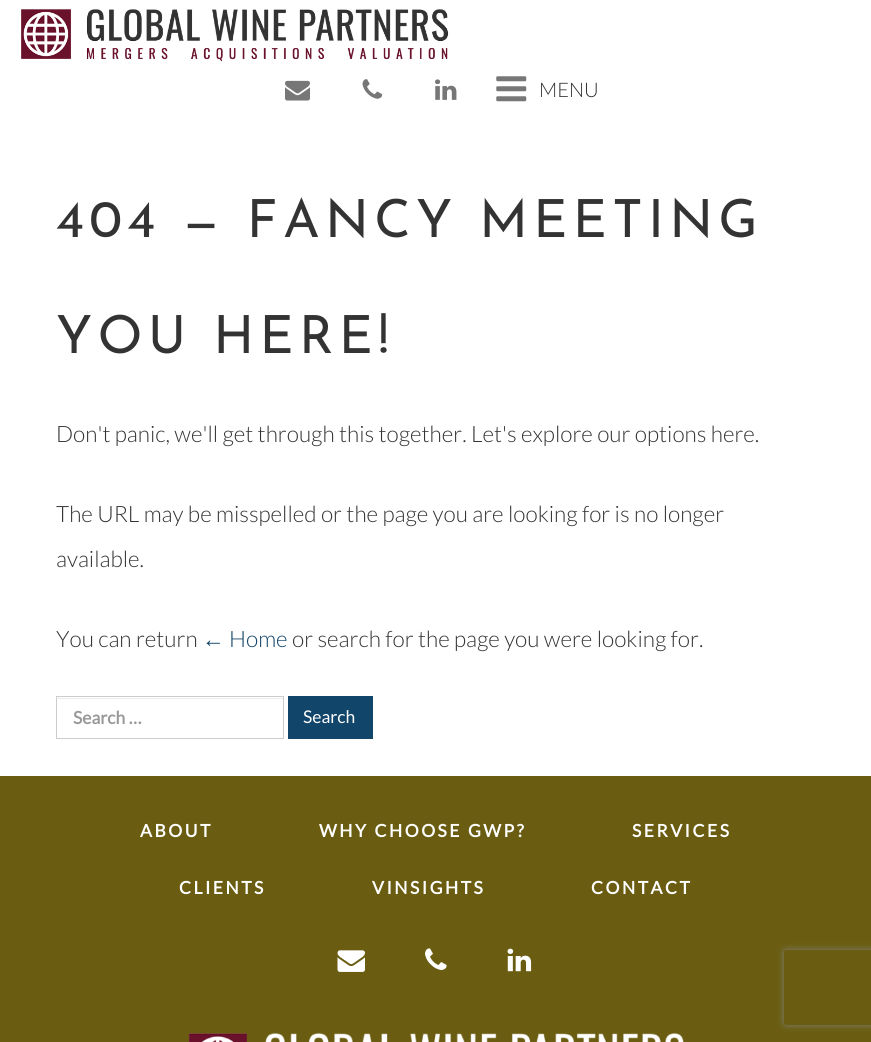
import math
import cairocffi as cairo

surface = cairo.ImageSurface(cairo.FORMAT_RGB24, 871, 1042)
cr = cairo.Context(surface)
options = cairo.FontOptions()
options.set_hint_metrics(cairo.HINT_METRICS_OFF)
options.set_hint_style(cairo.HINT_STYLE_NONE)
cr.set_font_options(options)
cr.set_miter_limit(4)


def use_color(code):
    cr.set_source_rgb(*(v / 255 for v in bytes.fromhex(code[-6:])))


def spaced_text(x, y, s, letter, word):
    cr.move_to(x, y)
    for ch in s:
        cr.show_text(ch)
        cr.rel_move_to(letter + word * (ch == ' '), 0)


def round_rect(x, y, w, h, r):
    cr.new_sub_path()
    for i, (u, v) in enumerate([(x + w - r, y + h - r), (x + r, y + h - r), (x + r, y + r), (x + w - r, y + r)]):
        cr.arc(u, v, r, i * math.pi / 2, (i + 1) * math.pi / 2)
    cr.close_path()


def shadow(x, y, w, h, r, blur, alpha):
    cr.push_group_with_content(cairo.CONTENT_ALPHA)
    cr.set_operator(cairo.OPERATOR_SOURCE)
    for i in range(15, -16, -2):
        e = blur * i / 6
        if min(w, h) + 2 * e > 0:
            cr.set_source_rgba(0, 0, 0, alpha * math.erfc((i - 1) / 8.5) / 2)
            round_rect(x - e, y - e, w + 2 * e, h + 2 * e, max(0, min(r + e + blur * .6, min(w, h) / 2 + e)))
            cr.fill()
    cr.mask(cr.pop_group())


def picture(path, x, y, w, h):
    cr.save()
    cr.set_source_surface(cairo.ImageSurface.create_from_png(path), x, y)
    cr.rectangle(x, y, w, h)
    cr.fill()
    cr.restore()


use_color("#ffffff")
cr.paint()
picture("img1.png", 21, 9, 428, 53)
picture("img2.png", 285, 80, 25, 21)
picture("img3.png", 362, 79, 21, 20)
picture("img4.png", 435, 79, 22, 21)
picture("img5.png", 496, 76, 31, 26)
cr.select_font_face("Lato Light")
cr.set_font_size(20)
use_color("#333333")
cr.move_to(539, 97)
cr.show_text("MENU")
cr.select_font_face("Josefin Sans")
cr.set_font_size(52.5)
spaced_text(56, 237, "404 — FANCY MEETING", 5.25, 0)
spaced_text(56, 353, "YOU HERE!", 5.25, 0)
cr.select_font_face("Lato Light")
cr.set_font_size(22.5)
cr.move_to(56, 442)
cr.show_text("Don't panic, we'll get through this together. Let's explore our options here.")
cr.move_to(56, 522)
cr.show_text("The URL may be misspelled or the page you are looking for is no longer")
cr.move_to(56, 567)
cr.show_text("available.")
cr.move_to(56, 647)
cr.show_text("You can return")
cr.select_font_face("Liberation Serif")
use_color("#12456a")
cr.move_to(202, 647)
cr.show_text("←")
cr.select_font_face("Lato Light")
cr.move_to(229, 647)
cr.show_text("Home")
use_color("#333333")
cr.move_to(292, 647)
cr.show_text("or search for the page you were looking for.")
use_color("#ececec")
cr.rectangle(58, 698, 225, 1)
cr.fill()
cr.rectangle(56.5, 696.5, 227, 42)
use_color("#cccccc")
cr.set_line_width(1)
cr.stroke()
cr.select_font_face("Lato", cairo.FONT_SLANT_NORMAL, cairo.FONT_WEIGHT_BOLD)
cr.set_font_size(17.5)
use_color("#999999")
cr.move_to(73, 724)
cr.show_text("Search …")
use_color("#12456a")
cr.rectangle(288, 696, 85, 43)
cr.fill()
cr.select_font_face("Lato")
use_color("#ffffff")
cr.move_to(303, 723)
cr.show_text("Search")
use_color("#6a5d12")
cr.rectangle(0, 776, 871, 266)
cr.fill()
cr.select_font_face("Lato", cairo.FONT_SLANT_NORMAL, cairo.FONT_WEIGHT_BOLD)
use_color("#ffffff")
spaced_text(140, 837, "ABOUT", 2.5, 0)
spaced_text(319, 837, "WHY CHOOSE GWP?", 2.5, 0)
spaced_text(632, 837, "SERVICES", 2.5, 0)
spaced_text(179, 894, "CLIENTS", 2.5, 0)
spaced_text(372, 894, "VINSIGHTS", 2.5, 0)
spaced_text(591, 894, "CONTACT", 2.5, 0)
picture("img6.png", 337, 950, 28, 22)
picture("img7.png", 425, 948, 22, 22)
picture("img8.png", 507, 948, 25, 24)
picture("img9.png", 188, 1032, 496, 10)
cr.save()
cr.set_fill_rule(cairo.FILL_RULE_EVEN_ODD)
cr.new_path()
cr.move_to(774, 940)
cr.line_to(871, 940)
cr.line_to(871, 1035)
cr.line_to(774, 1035)
cr.close_path()
cr.move_to(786.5, 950)
cr.line_to(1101.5, 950)
cr.curve_to(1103, 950, 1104, 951, 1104, 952.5)
cr.line_to(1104, 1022.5)
cr.curve_to(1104, 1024, 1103, 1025, 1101.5, 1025)
cr.line_to(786.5, 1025)
cr.curve_to(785, 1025, 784, 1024, 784, 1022.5)
cr.line_to(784, 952.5)
cr.curve_to(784, 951, 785, 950, 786.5, 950)
cr.close_path()
cr.clip()
use_color("#808080")
shadow(784, 950, 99, 75, 2.5, 3, 1)
cr.restore()
surface.write_to_png("result.png")
